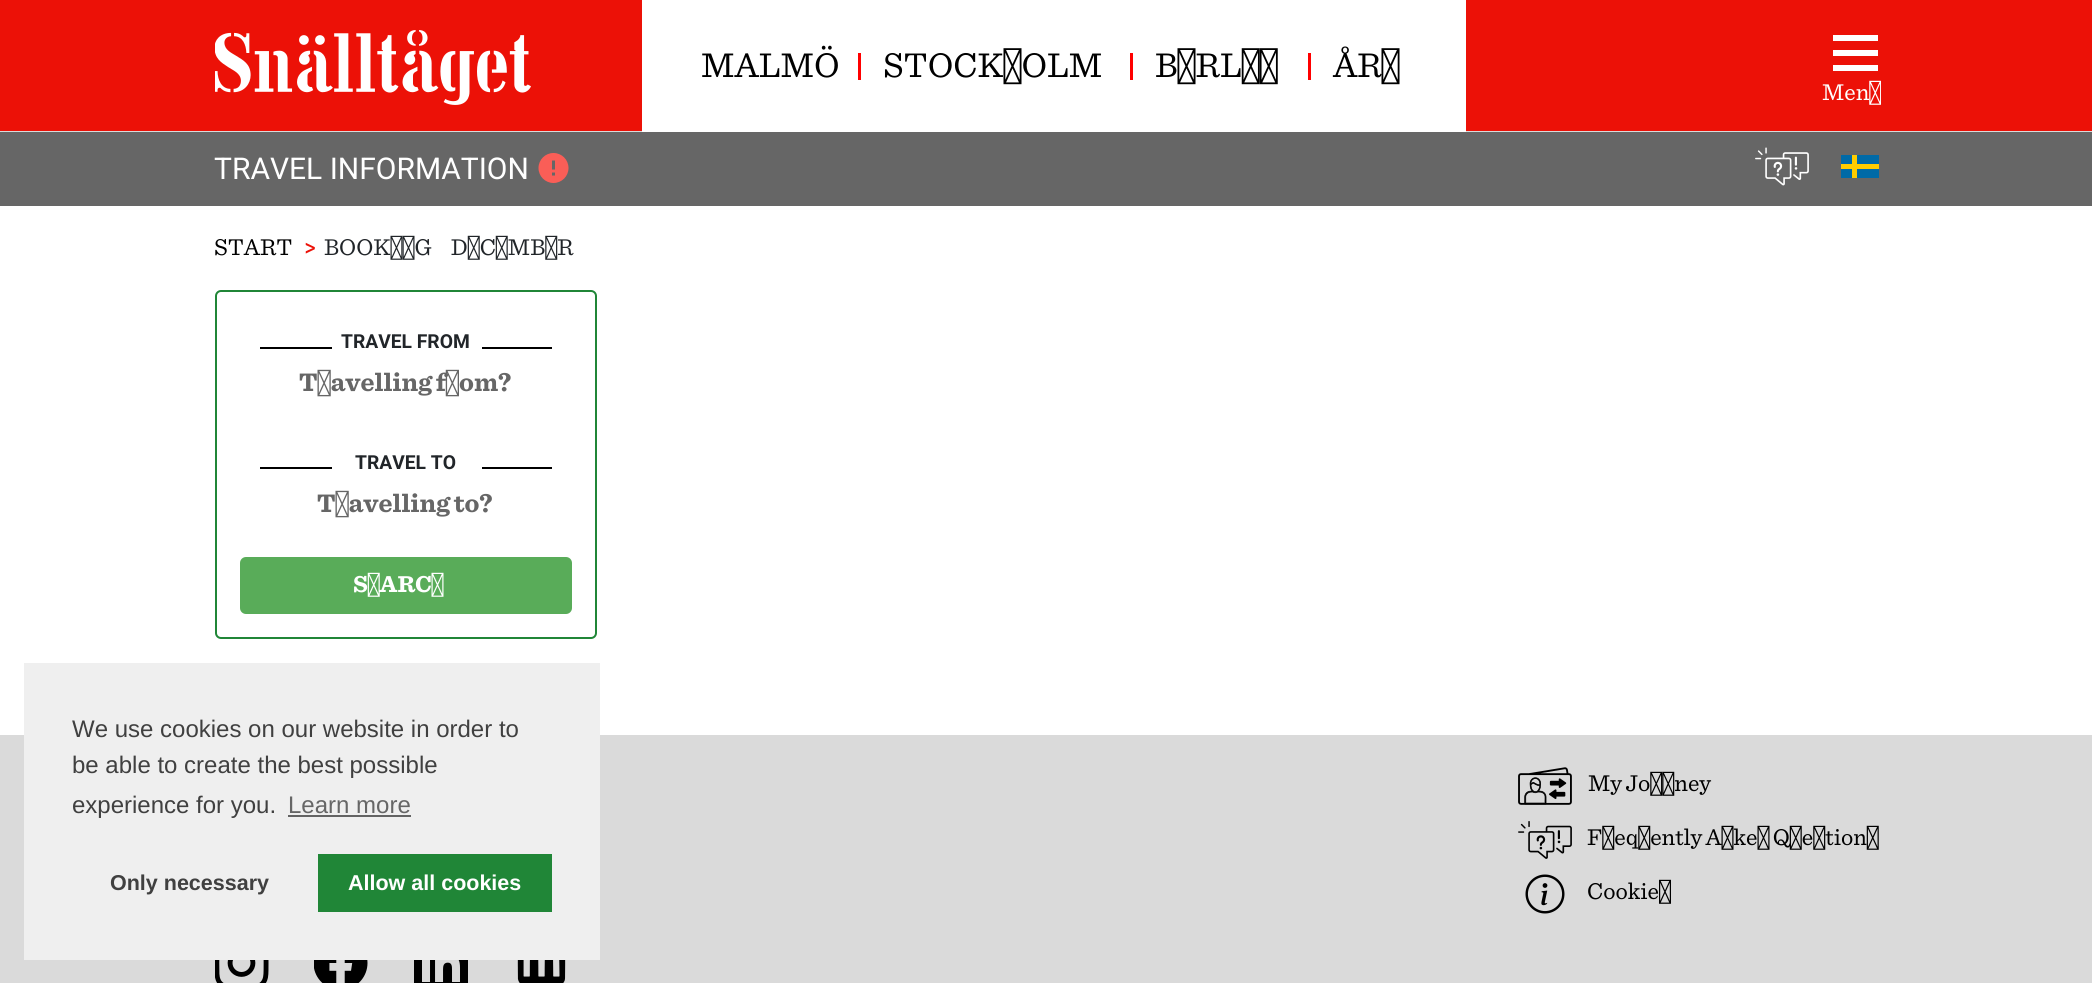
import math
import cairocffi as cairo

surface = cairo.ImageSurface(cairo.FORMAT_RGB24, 2092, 983)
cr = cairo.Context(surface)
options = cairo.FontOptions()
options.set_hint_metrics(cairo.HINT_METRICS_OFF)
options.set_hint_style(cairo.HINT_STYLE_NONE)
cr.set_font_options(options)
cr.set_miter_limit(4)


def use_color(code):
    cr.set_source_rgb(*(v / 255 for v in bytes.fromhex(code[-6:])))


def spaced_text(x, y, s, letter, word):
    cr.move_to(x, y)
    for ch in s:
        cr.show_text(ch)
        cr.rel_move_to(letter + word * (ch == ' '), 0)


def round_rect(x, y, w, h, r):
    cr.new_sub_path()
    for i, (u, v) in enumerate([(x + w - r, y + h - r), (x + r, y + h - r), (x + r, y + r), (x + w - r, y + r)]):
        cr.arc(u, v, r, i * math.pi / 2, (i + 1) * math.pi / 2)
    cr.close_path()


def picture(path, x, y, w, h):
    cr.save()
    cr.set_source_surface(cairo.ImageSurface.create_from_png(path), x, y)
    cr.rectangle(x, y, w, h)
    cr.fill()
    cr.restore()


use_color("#ffffff")
cr.paint()
use_color("#ec1107")
cr.rectangle(0, 0, 2092, 131)
cr.fill()
use_color("#dadada")
cr.rectangle(0, 131, 2092, 1)
cr.fill()
picture("img1.png", 215, 30, 316, 75)
use_color("#ffffff")
cr.rectangle(642, 0, 824, 132)
cr.fill()
use_color("#ff0000")
cr.rectangle(858, 53, 3, 27)
cr.fill()
cr.select_font_face("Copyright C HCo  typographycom")
cr.set_font_size(36)
use_color("#000000")
cr.move_to(701, 77)
cr.show_text("MALMÖ")
use_color("#ff0000")
cr.rectangle(1130, 53, 3, 27)
cr.fill()
use_color("#000000")
cr.move_to(883, 77)
cr.show_text("STOCKHOLM")
use_color("#ff0000")
cr.rectangle(1308, 53, 3, 27)
cr.fill()
use_color("#000000")
cr.move_to(1155, 77)
cr.show_text("BERLIN")
cr.move_to(1333, 77)
cr.show_text("ÅRE")
use_color("#ffffff")
cr.rectangle(1833, 35, 45, 6)
cr.fill()
cr.rectangle(1833, 50, 45, 6)
cr.fill()
cr.rectangle(1833, 65, 45, 6)
cr.fill()
cr.set_font_size(24)
cr.move_to(1822, 100)
cr.show_text("Menu")
use_color("#666666")
cr.rectangle(0, 132, 2092, 74)
cr.fill()
cr.select_font_face("Roboto")
cr.set_font_size(30)
use_color("#ffffff")
cr.move_to(214, 179)
cr.show_text("TRAVEL INFORMATION")
picture("img2.png", 538, 153, 31, 30)
picture("img3.png", 1755, 147, 54, 39)
use_color("#006aa7")
cr.rectangle(1841, 155, 38, 23)
cr.fill()
use_color("#fecc00")
cr.rectangle(1852, 155, 5, 23)
cr.fill()
cr.rectangle(1841, 164, 38, 5)
cr.fill()
cr.select_font_face("Copyright C HCo  typographycom")
cr.set_font_size(24)
use_color("#000000")
cr.move_to(214, 255)
cr.show_text("START")
cr.select_font_face("Copyright C HCo  typographycom", cairo.FONT_SLANT_NORMAL, cairo.FONT_WEIGHT_BOLD)
use_color("#ec1107")
cr.move_to(304, 255)
cr.show_text(">")
cr.select_font_face("Copyright C HCo  typographycom")
use_color("#212529")
spaced_text(324, 255, "BOOKING DECEMBER", 0, 15)
round_rect(216, 291, 380, 347, 5)
use_color("#208637")
cr.stroke()
use_color("#000000")
cr.rectangle(260, 347, 72, 2)
cr.fill()
cr.select_font_face("Roboto", cairo.FONT_SLANT_NORMAL, cairo.FONT_WEIGHT_BOLD)
cr.set_font_size(19.25)
use_color("#212529")
cr.move_to(341, 348)
cr.show_text("TRAVEL FROM")
use_color("#000000")
cr.rectangle(482, 347, 70, 2)
cr.fill()
cr.select_font_face("Copyright C HCo  typographycom", cairo.FONT_SLANT_NORMAL, cairo.FONT_WEIGHT_BOLD)
cr.set_font_size(26.5)
use_color("#666666")
spaced_text(299, 391, "Travelling from?", 0, -1)
use_color("#000000")
cr.rectangle(260, 467, 72, 2)
cr.fill()
cr.select_font_face("Roboto", cairo.FONT_SLANT_NORMAL, cairo.FONT_WEIGHT_BOLD)
cr.set_font_size(19.25)
use_color("#212529")
cr.move_to(355, 469)
cr.show_text("TRAVEL TO")
use_color("#000000")
cr.rectangle(482, 467, 70, 2)
cr.fill()
cr.select_font_face("Copyright C HCo  typographycom", cairo.FONT_SLANT_NORMAL, cairo.FONT_WEIGHT_BOLD)
cr.set_font_size(26.5)
use_color("#666666")
spaced_text(317, 512, "Travelling to?", 0, -1)
use_color("#59ac59")
round_rect(241, 558, 330, 55, 5)
cr.fill_preserve()
cr.stroke()
cr.set_font_size(24)
use_color("#ffffff")
cr.move_to(353, 592)
cr.show_text("SEARCH")
use_color("#dadada")
cr.rectangle(0, 735, 2092, 248)
cr.fill()
use_color("#efefef")
cr.rectangle(24, 663, 576, 297)
cr.fill()
cr.select_font_face("Liberation Sans")
use_color("#404040")
cr.move_to(72, 737)
cr.show_text("We use cookies on our website in order to")
cr.move_to(72, 773)
cr.show_text("be able to create the best possible")
cr.move_to(72, 813)
cr.show_text("experience for you.")
use_color("#666666")
cr.move_to(288, 813)
cr.show_text("Learn more")
use_color("#636363")
cr.rectangle(288, 815, 123, 2)
cr.fill()
cr.select_font_face("Liberation Sans", cairo.FONT_SLANT_NORMAL, cairo.FONT_WEIGHT_BOLD)
cr.set_font_size(21.5)
use_color("#404040")
cr.move_to(110, 890)
cr.show_text("Only necessary")
use_color("#208637")
cr.rectangle(318, 854, 234, 58)
cr.fill()
use_color("#ffffff")
cr.move_to(348, 890)
cr.show_text("Allow all cookies")
picture("img4.png", 1518, 767, 54, 38)
cr.select_font_face("Copyright C HCo  typographycom")
cr.set_font_size(24)
use_color("#000000")
spaced_text(1588, 791, "My Journey", 0, -1)
picture("img5.png", 1518, 821, 54, 38)
spaced_text(1587, 845, "Frequently Asked Questions", 0, -1)
picture("img6.png", 1525, 874, 40, 40)
cr.move_to(1587, 899)
cr.show_text("Cookies")
picture("img7.png", 215, 960, 54, 23)
picture("img8.png", 314, 960, 54, 23)
picture("img9.png", 414, 960, 54, 23)
picture("img10.png", 517, 960, 49, 23)
surface.write_to_png("result.png")
